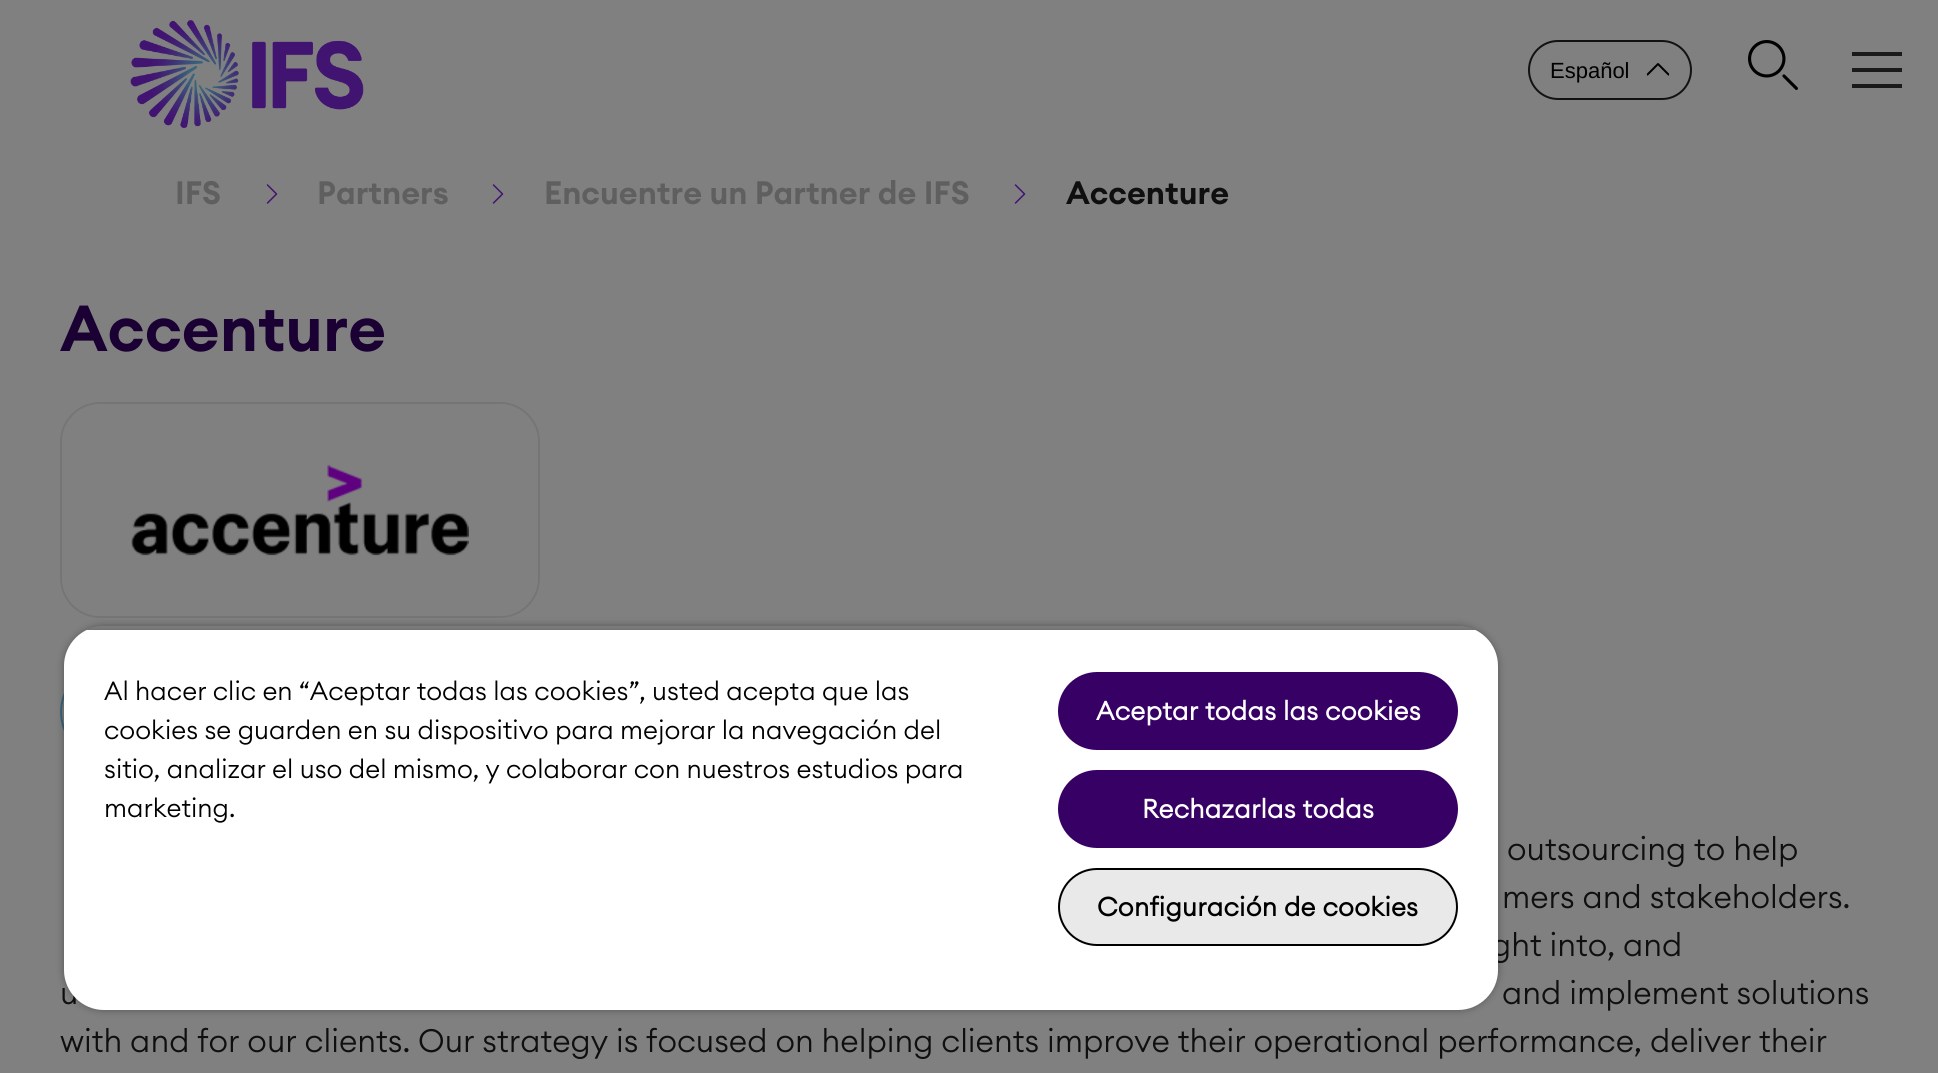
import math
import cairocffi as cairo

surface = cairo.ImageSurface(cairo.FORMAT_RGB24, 1938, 1073)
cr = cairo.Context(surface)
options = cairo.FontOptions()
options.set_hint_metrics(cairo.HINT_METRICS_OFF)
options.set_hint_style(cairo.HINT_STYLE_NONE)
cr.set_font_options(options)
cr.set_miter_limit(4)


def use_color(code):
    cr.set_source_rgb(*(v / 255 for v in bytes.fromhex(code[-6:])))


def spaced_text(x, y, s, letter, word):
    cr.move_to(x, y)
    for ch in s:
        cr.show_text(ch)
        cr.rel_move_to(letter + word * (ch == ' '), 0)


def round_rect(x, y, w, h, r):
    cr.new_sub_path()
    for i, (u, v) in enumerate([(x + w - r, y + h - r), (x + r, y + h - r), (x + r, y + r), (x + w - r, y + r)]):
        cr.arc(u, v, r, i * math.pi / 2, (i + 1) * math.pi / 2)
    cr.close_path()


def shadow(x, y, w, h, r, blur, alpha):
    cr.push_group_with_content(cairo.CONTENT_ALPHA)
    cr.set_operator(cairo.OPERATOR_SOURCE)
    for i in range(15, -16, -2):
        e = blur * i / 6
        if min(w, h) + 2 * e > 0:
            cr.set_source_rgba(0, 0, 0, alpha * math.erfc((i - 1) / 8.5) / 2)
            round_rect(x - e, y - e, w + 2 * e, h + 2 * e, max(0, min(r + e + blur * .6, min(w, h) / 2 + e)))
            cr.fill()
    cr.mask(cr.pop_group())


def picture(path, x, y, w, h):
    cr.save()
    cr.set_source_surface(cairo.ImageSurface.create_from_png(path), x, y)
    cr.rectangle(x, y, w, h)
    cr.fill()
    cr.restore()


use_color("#808080")
cr.paint()
picture("img1.png", 130, 20, 234, 108)
round_rect(1529, 41, 162, 58, 29)
use_color("#121212")
cr.stroke()
cr.select_font_face("Liberation Sans")
cr.set_font_size(22)
use_color("#000000")
cr.move_to(1550, 78)
cr.show_text("Español")
picture("img2.png", 1646, 63, 24, 13)
picture("img3.png", 1748, 40, 50, 50)
use_color("#1a1a1a")
cr.rectangle(1852, 52, 50, 4)
cr.fill()
cr.rectangle(1852, 68, 50, 4)
cr.fill()
cr.rectangle(1852, 84, 50, 4)
cr.fill()
cr.select_font_face("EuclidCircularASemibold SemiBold")
cr.set_font_size(32)
use_color("#5f5f5f")
cr.move_to(175, 204)
cr.show_text("IFS")
picture("img4.png", 266, 184, 12, 20)
cr.move_to(317, 204)
cr.show_text("Partners")
picture("img4.png", 492, 184, 12, 20)
cr.move_to(544, 204)
cr.show_text("Encuentre un Partner de IFS")
picture("img4.png", 1014, 184, 12, 20)
use_color("#0f0f0f")
cr.move_to(1066, 204)
cr.show_text("Accenture")
cr.set_font_size(64)
use_color("#1a0033")
cr.move_to(60, 351)
cr.show_text("Accenture")
round_rect(61, 403, 478, 214, 39)
use_color("#757575")
cr.stroke()
picture("img5.png", 62, 404, 476, 212)
use_color("#3a657c")
round_rect(60, 664, 302, 96, 48)
cr.fill()
use_color("#808080")
round_rect(62, 666, 298, 92, 46)
cr.fill()
cr.select_font_face("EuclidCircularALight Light")
cr.set_font_size(32)
use_color("#0f0f0f")
cr.move_to(1507, 860)
cr.show_text("outsourcing to help")
cr.move_to(1502, 908)
cr.show_text("mers and stakeholders.")
cr.move_to(1491, 956)
cr.show_text("ght into, and")
cr.move_to(60, 1004)
cr.show_text("u")
cr.move_to(1502, 1004)
cr.show_text("and implement solutions")
cr.move_to(60, 1052)
cr.show_text("with and for our clients. Our strategy is focused on helping clients improve their operational performance, deliver their")
cr.save()
cr.set_fill_rule(cairo.FILL_RULE_EVEN_ODD)
cr.new_path()
cr.move_to(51, 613)
cr.line_to(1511, 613)
cr.line_to(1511, 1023)
cr.line_to(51, 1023)
cr.close_path()
cr.move_to(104, 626)
cr.line_to(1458, 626)
cr.curve_to(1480, 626, 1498, 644, 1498, 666)
cr.line_to(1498, 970)
cr.curve_to(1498, 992, 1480, 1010, 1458, 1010)
cr.line_to(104, 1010)
cr.curve_to(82, 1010, 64, 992, 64, 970)
cr.line_to(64, 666)
cr.curve_to(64, 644, 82, 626, 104, 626)
cr.close_path()
cr.clip()
use_color("#000000")
shadow(64, 626, 1434, 384, 40, 4, 0.35)
cr.restore()
cr.save()
round_rect(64, 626, 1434, 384, 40)
cr.clip()
use_color("#000000")
shadow(64, 630, 1434, 380, 0, 4, 0.2)
cr.restore()
cr.save()
round_rect(64, 626, 1434, 384, 40)
cr.clip()
use_color("#ffffff")
cr.new_path()
cr.move_to(64, 630)
cr.line_to(1498, 630)
cr.line_to(1498, 970)
cr.curve_to(1498, 992, 1480, 1010, 1458, 1010)
cr.line_to(104, 1010)
cr.curve_to(82, 1010, 64, 992, 64, 970)
cr.close_path()
cr.fill()
cr.restore()
cr.set_font_size(26)
use_color("#000000")
cr.move_to(104, 700)
cr.show_text("Al hacer clic en “Aceptar todas las cookies”, usted acepta que las")
cr.move_to(104, 739)
cr.show_text("cookies se guarden en su dispositivo para mejorar la navegación del")
cr.move_to(104, 778)
cr.show_text("sitio, analizar el uso del mismo, y colaborar con nuestros estudios para")
cr.move_to(104, 817)
cr.show_text("marketing.")
use_color("#360065")
round_rect(1059, 673, 398, 76, 38)
cr.fill_preserve()
cr.stroke()
cr.select_font_face("EuclidCircularALight", cairo.FONT_SLANT_NORMAL, cairo.FONT_WEIGHT_BOLD)
use_color("#ffffff")
spaced_text(1096, 720, "Aceptar todas las cookies", 0.25, 0)
use_color("#360065")
round_rect(1059, 771, 398, 76, 38)
cr.fill_preserve()
cr.stroke()
use_color("#ffffff")
spaced_text(1142, 818, "Rechazarlas todas", 0.25, 0)
use_color("#e9e9e9")
round_rect(1059, 869, 398, 76, 38)
cr.fill_preserve()
use_color("#000000")
cr.stroke()
spaced_text(1097, 916, "Configuración de cookies", 0.25, 0)
surface.write_to_png("result.png")
